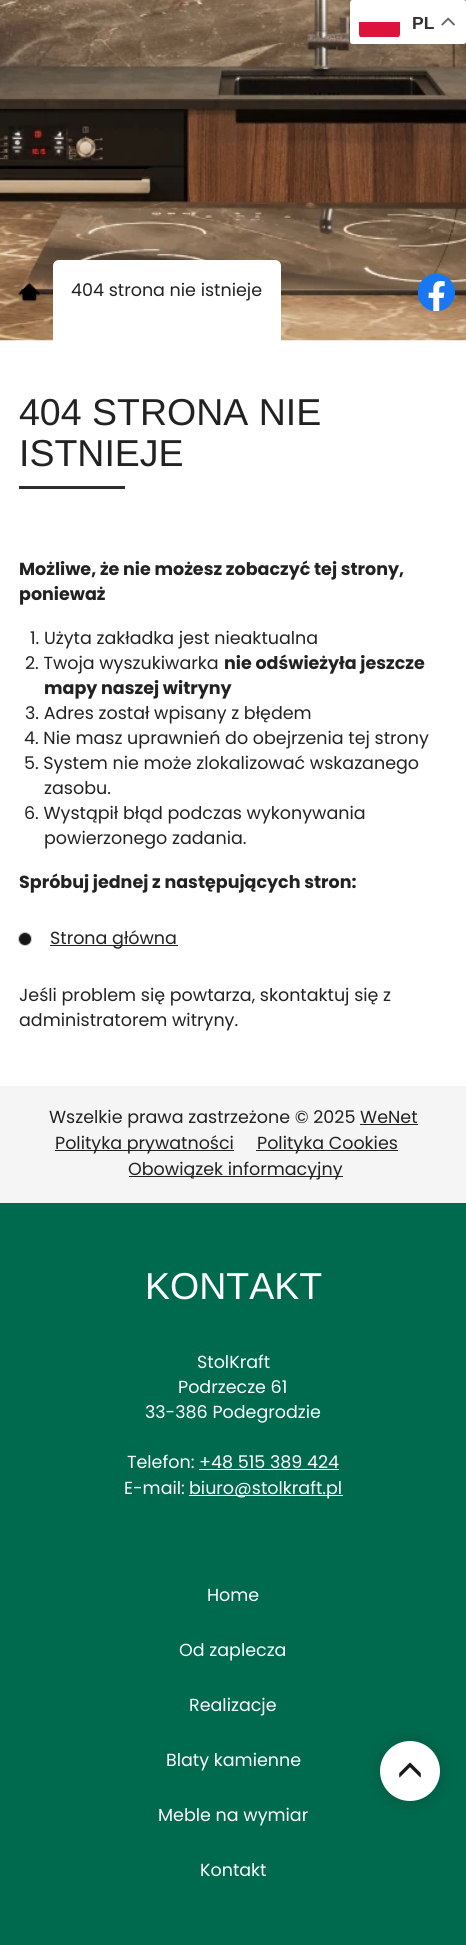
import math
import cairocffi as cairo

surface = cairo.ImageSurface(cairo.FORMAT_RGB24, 466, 1945)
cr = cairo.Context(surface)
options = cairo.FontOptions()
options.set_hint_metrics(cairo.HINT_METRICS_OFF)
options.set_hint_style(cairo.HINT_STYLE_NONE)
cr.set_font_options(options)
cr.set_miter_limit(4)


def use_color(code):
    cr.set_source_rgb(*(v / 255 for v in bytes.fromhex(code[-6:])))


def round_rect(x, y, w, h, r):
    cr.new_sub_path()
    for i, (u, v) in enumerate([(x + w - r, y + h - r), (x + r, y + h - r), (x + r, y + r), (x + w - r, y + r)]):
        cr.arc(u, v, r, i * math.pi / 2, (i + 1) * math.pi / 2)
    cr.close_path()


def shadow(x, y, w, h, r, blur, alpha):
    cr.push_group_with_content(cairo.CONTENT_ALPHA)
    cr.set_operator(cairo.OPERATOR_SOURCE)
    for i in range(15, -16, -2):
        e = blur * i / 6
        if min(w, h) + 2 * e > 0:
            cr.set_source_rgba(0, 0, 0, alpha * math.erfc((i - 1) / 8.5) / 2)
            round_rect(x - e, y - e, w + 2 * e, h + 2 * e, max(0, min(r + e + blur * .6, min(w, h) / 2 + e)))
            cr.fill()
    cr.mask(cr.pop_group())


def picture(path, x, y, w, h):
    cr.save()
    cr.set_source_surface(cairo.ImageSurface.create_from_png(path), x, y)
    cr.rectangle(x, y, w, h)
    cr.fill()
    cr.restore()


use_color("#ffffff")
cr.paint()
picture("img2.png", 0, 0, 466, 341)
use_color("#000000")
shadow(350, 6, 116, 44, 2.5, 9.5, 0.15)
use_color("#ffffff")
round_rect(350, 0, 116, 44, 2.5)
cr.fill()
cr.save()
round_rect(359, 6, 41, 32, 4)
cr.clip()
use_color("#dc143c")
cr.rectangle(359, 22, 41, 15)
cr.fill()
cr.restore()
cr.select_font_face("Liberation Sans", cairo.FONT_SLANT_NORMAL, cairo.FONT_WEIGHT_BOLD)
cr.set_font_size(17.5)
use_color("#333333")
cr.move_to(412, 29)
cr.show_text("PL")
picture("img1.png", 441, 17, 14, 9)
picture("img3.png", 18, 282, 22, 20)
use_color("#ffffff")
cr.new_path()
cr.move_to(59, 260)
cr.line_to(275, 260)
cr.curve_to(278.5, 260, 281, 262.5, 281, 266)
cr.line_to(281, 341)
cr.line_to(53, 341)
cr.line_to(53, 266)
cr.curve_to(53, 262.5, 55.5, 260, 59, 260)
cr.close_path()
cr.fill()
cr.select_font_face("Poppins")
use_color("#222222")
cr.move_to(71, 296)
cr.show_text("404 strona nie istnieje")
cr.select_font_face("Liberation Sans")
cr.set_font_size(37.5)
cr.move_to(19, 425)
cr.show_text("404 STRONA NIE")
cr.move_to(19, 466)
cr.show_text("ISTNIEJE")
use_color("#2c2c2c")
cr.rectangle(19, 486, 106, 3)
cr.fill()
cr.select_font_face("Poppins", cairo.FONT_SLANT_NORMAL, cairo.FONT_WEIGHT_BOLD)
cr.set_font_size(17.5)
use_color("#222222")
cr.move_to(19, 575)
cr.show_text("Możliwe, że nie możesz zobaczyć tej strony,")
cr.move_to(19, 600)
cr.show_text("ponieważ")
cr.select_font_face("Poppins")
cr.move_to(30, 644)
cr.show_text("1. Użyta zakładka jest nieaktualna")
cr.move_to(25, 669)
cr.show_text("2. Twoja wyszukiwarka")
cr.select_font_face("Poppins", cairo.FONT_SLANT_NORMAL, cairo.FONT_WEIGHT_BOLD)
cr.move_to(224, 669)
cr.show_text("nie odświeżyła jeszcze")
cr.move_to(44, 694)
cr.show_text("mapy naszej witryny")
cr.select_font_face("Poppins")
cr.move_to(25, 719)
cr.show_text("3. Adres został wpisany z błędem")
cr.move_to(24, 744)
cr.show_text("4. Nie masz uprawnień do obejrzenia tej strony")
cr.move_to(24, 769)
cr.show_text("5. System nie może zlokalizować wskazanego")
cr.move_to(44, 794)
cr.show_text("zasobu.")
cr.move_to(24, 819)
cr.show_text("6. Wystąpił błąd podczas wykonywania")
cr.move_to(44, 844)
cr.show_text("powierzonego zadania.")
cr.select_font_face("Poppins", cairo.FONT_SLANT_NORMAL, cairo.FONT_WEIGHT_BOLD)
cr.move_to(19, 888)
cr.show_text("Spróbuj jednej z następujących stron:")
picture("img4.png", 18, 932, 14, 14)
cr.rectangle(50, 945, 128, 1)
cr.fill()
cr.select_font_face("Poppins")
cr.move_to(50, 944)
cr.show_text("Strona główna")
cr.move_to(19, 1001)
cr.show_text("Jeśli problem się powtarza, skontaktuj się z")
cr.move_to(19, 1026)
cr.show_text("administratorem witryny.")
picture("img5.png", 418, 274, 37, 37)
use_color("#f5f5f5")
cr.rectangle(0, 1086, 466, 117)
cr.fill()
use_color("#222222")
cr.move_to(49, 1123)
cr.show_text("Wszelkie prawa zastrzeżone © 2025 WeNet")
cr.rectangle(360, 1124, 58, 1)
cr.fill()
cr.rectangle(55, 1150, 179, 1)
cr.fill()
cr.move_to(55, 1149)
cr.show_text("Polityka prywatności")
cr.rectangle(256, 1150, 142, 1)
cr.fill()
cr.move_to(257, 1149)
cr.show_text("Polityka Cookies")
cr.rectangle(129, 1176, 214, 1)
cr.fill()
cr.move_to(128, 1175)
cr.show_text("Obowiązek informacyjny")
use_color("#006a4e")
cr.rectangle(0, 1203, 466, 742)
cr.fill()
cr.select_font_face("Liberation Sans")
cr.set_font_size(37.5)
use_color("#ffffff")
cr.move_to(145, 1299)
cr.show_text("KONTAKT")
cr.select_font_face("Poppins")
cr.set_font_size(17.5)
cr.move_to(197, 1368)
cr.show_text("StolKraft")
cr.move_to(178, 1393)
cr.show_text("Podrzecze 61")
cr.move_to(145, 1418)
cr.show_text("33-386 Podegrodzie")
cr.move_to(127, 1468)
cr.show_text("Telefon: +48 515 389 424")
cr.rectangle(199, 1469, 140, 1)
cr.fill()
cr.move_to(124, 1494)
cr.show_text("E-mail:")
cr.rectangle(189, 1495, 154, 1)
cr.fill()
cr.move_to(189, 1494)
cr.show_text("biuro@stolkraft.pl")
cr.move_to(207, 1601)
cr.show_text("Home")
cr.move_to(179, 1656)
cr.show_text("Od zaplecza")
cr.move_to(189, 1711)
cr.show_text("Realizacje")
cr.move_to(166, 1766)
cr.show_text("Blaty kamienne")
cr.move_to(158, 1821)
cr.show_text("Meble na wymiar")
cr.move_to(200, 1876)
cr.show_text("Kontakt")
use_color("#000000")
shadow(379, 1740, 62, 63, 31, 8, 0.15)
use_color("#ffffff")
cr.arc(410, 1771, 30, 0, 2 * math.pi)
cr.fill()
picture("img6.png", 399, 1762, 22, 16)
surface.write_to_png("result.png")
